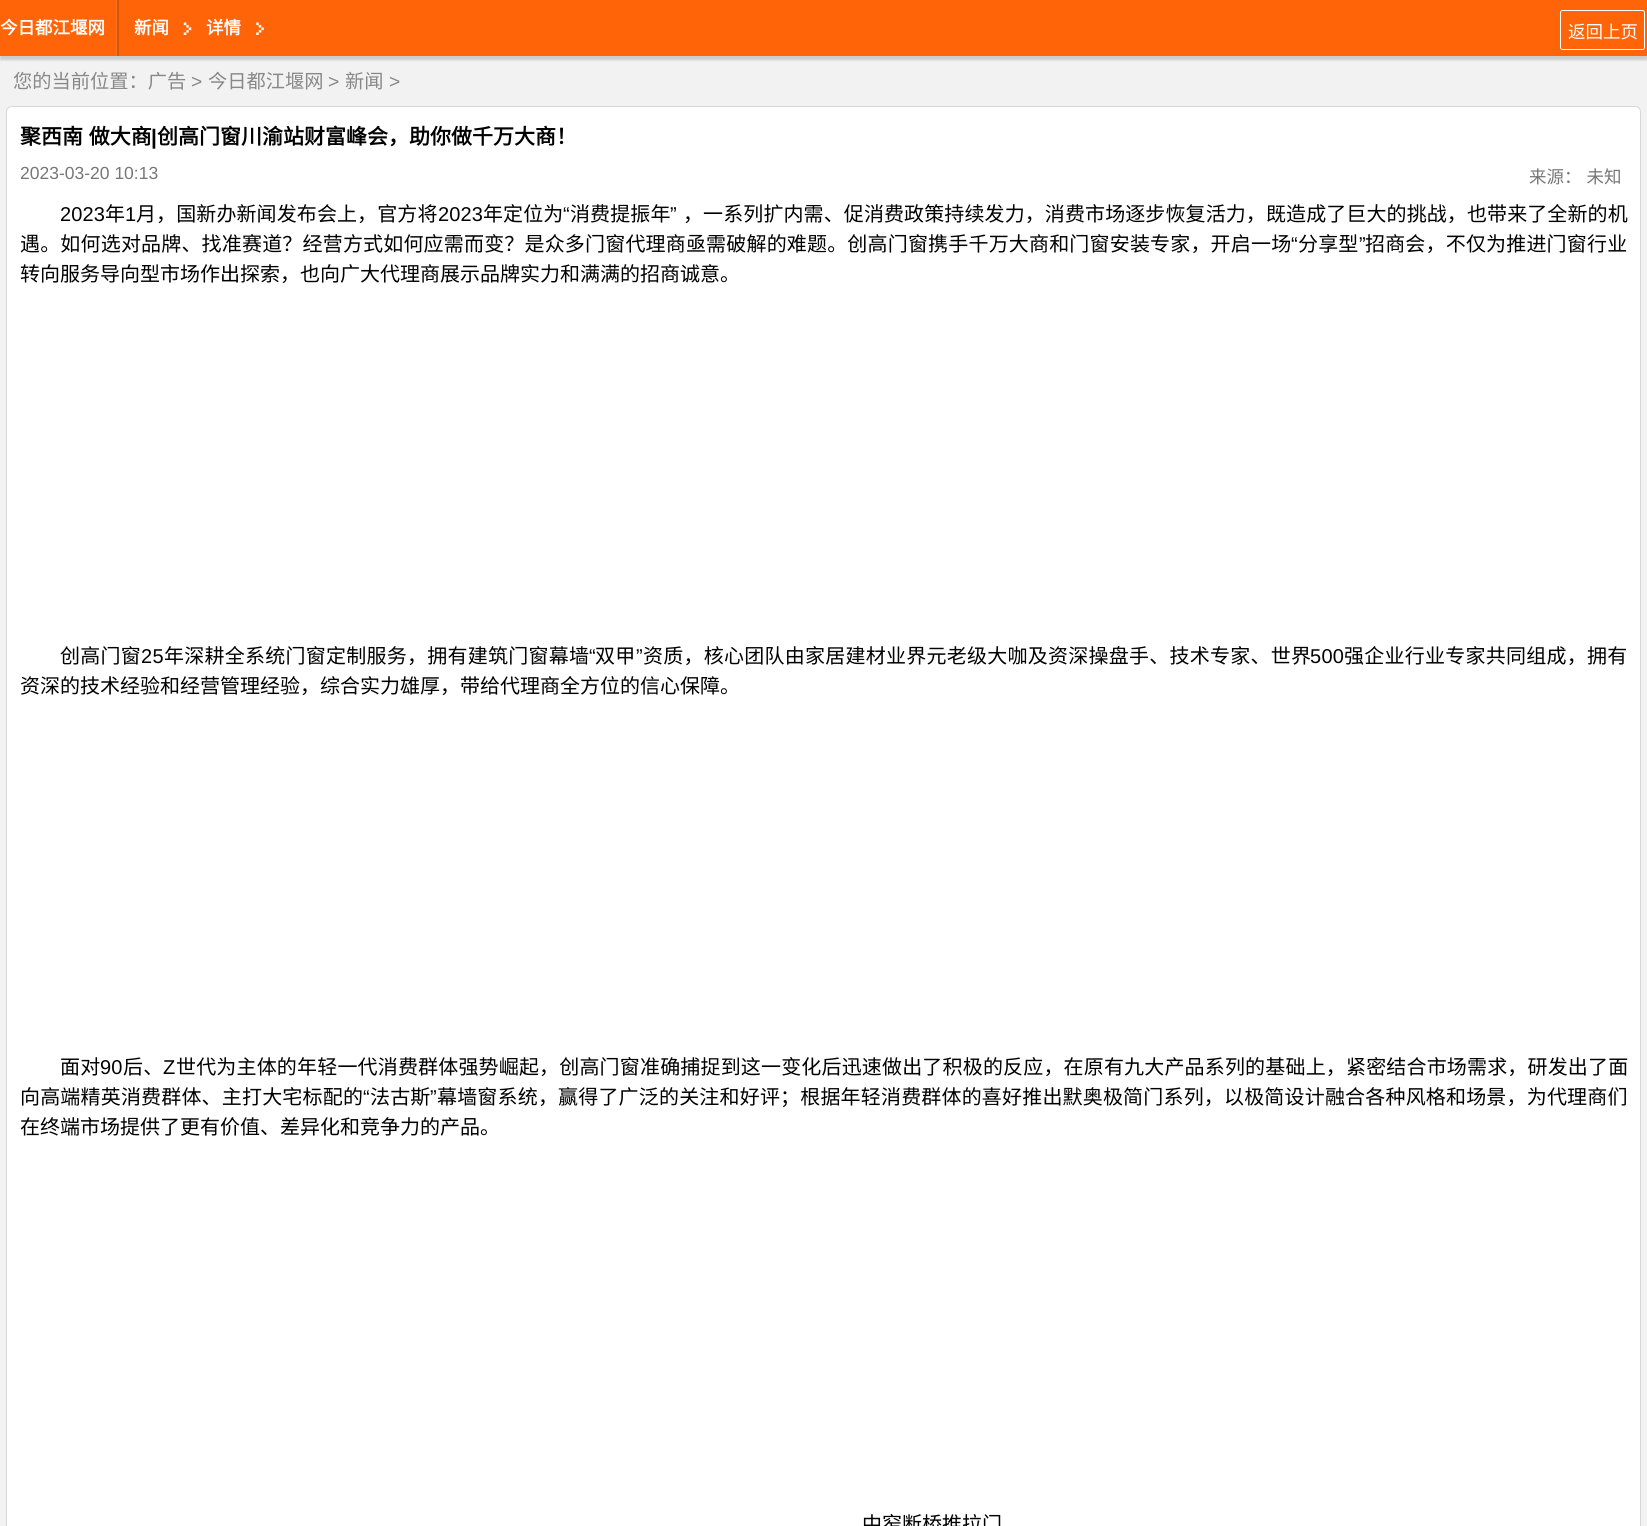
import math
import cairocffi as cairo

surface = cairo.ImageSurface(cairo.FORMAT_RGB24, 1647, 1526)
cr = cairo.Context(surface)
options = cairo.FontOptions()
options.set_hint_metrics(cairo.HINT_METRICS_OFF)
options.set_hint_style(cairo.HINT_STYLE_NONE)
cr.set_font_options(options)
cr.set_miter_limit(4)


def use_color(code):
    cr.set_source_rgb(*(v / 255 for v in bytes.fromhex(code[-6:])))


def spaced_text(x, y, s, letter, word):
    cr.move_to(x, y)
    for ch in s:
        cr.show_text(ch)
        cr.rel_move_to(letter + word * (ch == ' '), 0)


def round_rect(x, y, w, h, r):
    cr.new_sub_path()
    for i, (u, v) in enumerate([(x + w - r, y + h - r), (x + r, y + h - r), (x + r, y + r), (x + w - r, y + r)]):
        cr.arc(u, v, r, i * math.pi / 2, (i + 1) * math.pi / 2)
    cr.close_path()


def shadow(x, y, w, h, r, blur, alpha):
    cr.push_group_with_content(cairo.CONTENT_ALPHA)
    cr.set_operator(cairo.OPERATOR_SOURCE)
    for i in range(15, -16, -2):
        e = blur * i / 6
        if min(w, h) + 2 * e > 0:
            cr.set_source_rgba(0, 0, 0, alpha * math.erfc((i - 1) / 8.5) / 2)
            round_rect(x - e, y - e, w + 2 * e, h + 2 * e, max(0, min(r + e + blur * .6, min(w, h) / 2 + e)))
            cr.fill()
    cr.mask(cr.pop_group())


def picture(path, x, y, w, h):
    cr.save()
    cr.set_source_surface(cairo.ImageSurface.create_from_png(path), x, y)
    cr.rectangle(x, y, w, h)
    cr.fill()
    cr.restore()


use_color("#f2f2f2")
cr.paint()
use_color("#cccccc")
shadow(0, 4, 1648, 56, 0, 1, 1)
use_color("#ff6508")
cr.rectangle(0, 0, 1647, 56)
cr.fill()
cr.select_font_face("Noto Sans CJK SC", cairo.FONT_SLANT_NORMAL, cairo.FONT_WEIGHT_BOLD)
cr.set_font_size(17.5)
use_color("#ffffff")
cr.move_to(0, 34)
cr.show_text("今日都江堰网")
use_color("#d1570e")
cr.rectangle(117, 0, 2, 56)
cr.fill()
use_color("#ff731f")
cr.rectangle(116, 0, 1, 56)
cr.fill()
picture("img1.png", 183, 22, 9, 13)
use_color("#ffffff")
cr.move_to(134, 34)
cr.show_text("新闻")
picture("img2.png", 256, 22, 8, 13)
cr.move_to(206, 34)
cr.show_text("详情")
round_rect(1560.5, 10.5, 84, 39, 2)
cr.set_line_width(1)
cr.stroke()
cr.select_font_face("Noto Sans CJK SC")
cr.move_to(1568, 38)
cr.show_text("返回上页")
cr.set_font_size(19.25)
use_color("#888888")
cr.move_to(13, 88)
cr.show_text("您的当前位置：广告")
cr.select_font_face("Liberation Sans")
cr.move_to(191, 88)
cr.show_text(">")
cr.select_font_face("Noto Sans CJK SC")
cr.move_to(208, 88)
cr.show_text("今日都江堰网")
cr.select_font_face("Liberation Sans")
cr.move_to(328, 88)
cr.show_text(">")
cr.select_font_face("Noto Sans CJK SC")
cr.move_to(345, 88)
cr.show_text("新闻")
cr.select_font_face("Liberation Sans")
cr.move_to(389, 88)
cr.show_text(">")
use_color("#ffffff")
round_rect(6.5, 106.5, 1634, 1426, 5.5)
cr.fill_preserve()
use_color("#d7d7d7")
cr.stroke()
cr.select_font_face("Noto Sans CJK SC", cairo.FONT_SLANT_NORMAL, cairo.FONT_WEIGHT_BOLD)
cr.set_font_size(21)
use_color("#000000")
spaced_text(20, 144, "聚西南 做大商", 0, 1)
cr.select_font_face("Liberation Sans", cairo.FONT_SLANT_NORMAL, cairo.FONT_WEIGHT_BOLD)
cr.move_to(151, 144)
cr.show_text("|")
cr.select_font_face("Noto Sans CJK SC", cairo.FONT_SLANT_NORMAL, cairo.FONT_WEIGHT_BOLD)
cr.move_to(157, 144)
cr.show_text("创高门窗川渝站财富峰会，助你做千万大商！")
cr.select_font_face("Liberation Sans")
cr.set_font_size(17.5)
use_color("#777777")
cr.move_to(20, 179)
cr.show_text("2023-03-20 10:13")
cr.select_font_face("Noto Sans CJK SC")
spaced_text(1529, 183, "来源： 未知", 0, 1)
cr.select_font_face("Liberation Sans")
cr.set_font_size(20)
use_color("#000000")
spaced_text(60, 221, "2023", 0.1, 0)
cr.select_font_face("Noto Sans CJK SC")
spaced_text(105, 221, "年", 0.1, 0)
cr.select_font_face("Liberation Sans")
spaced_text(125, 221, "1", 0.1, 0)
cr.select_font_face("Noto Sans CJK SC")
spaced_text(136, 221, "月，国新办新闻发布会上，官方将", 0.1, 0)
cr.select_font_face("Liberation Sans")
spaced_text(438, 221, "2023", 0.1, 0)
cr.select_font_face("Noto Sans CJK SC")
spaced_text(483, 221, "年定位为", 0.1, 0)
cr.select_font_face("Liberation Sans")
spaced_text(563, 221, "“", 0.1, 0)
cr.select_font_face("Noto Sans CJK SC")
spaced_text(570, 221, "消费提振年", 0.1, 0)
cr.select_font_face("Liberation Sans")
spaced_text(670, 221, "”", 0.1, 0)
cr.select_font_face("Noto Sans CJK SC")
spaced_text(683, 221, "，一系列扩内需、促消费政策持续发力，消费市场逐步恢复活力，既造成了巨大的挑战，也带来了全新的机", 0.1, 0)
spaced_text(20, 251, "遇。如何选对品牌、找准赛道？经营方式如何应需而变？是众多门窗代理商亟需破解的难题。创高门窗携手千万大商和门窗安装专家，开启一场", 0.18, 0)
cr.select_font_face("Liberation Sans")
spaced_text(1291, 251, "“", 0.18, 0)
cr.select_font_face("Noto Sans CJK SC")
spaced_text(1298, 251, "分享型", 0.18, 0)
cr.select_font_face("Liberation Sans")
spaced_text(1359, 251, "”", 0.18, 0)
cr.select_font_face("Noto Sans CJK SC")
spaced_text(1365, 251, "招商会，不仅为推进门窗行业", 0.18, 0)
cr.move_to(20, 281)
cr.show_text("转向服务导向型市场作出探索，也向广大代理商展示品牌实力和满满的招商诚意。")
spaced_text(60, 663, "创高门窗", 0.25, 0)
cr.select_font_face("Liberation Sans")
spaced_text(141, 663, "25", 0.25, 0)
cr.select_font_face("Noto Sans CJK SC")
spaced_text(164, 663, "年深耕全系统门窗定制服务，拥有建筑门窗幕墙", 0.25, 0)
cr.select_font_face("Liberation Sans")
spaced_text(589, 663, "“", 0.25, 0)
cr.select_font_face("Noto Sans CJK SC")
spaced_text(595, 663, "双甲", 0.25, 0)
cr.select_font_face("Liberation Sans")
spaced_text(636, 663, "”", 0.25, 0)
cr.select_font_face("Noto Sans CJK SC")
spaced_text(643, 663, "资质，核心团队由家居建材业界元老级大咖及资深操盘手、技术专家、世界", 0.25, 0)
cr.select_font_face("Liberation Sans")
spaced_text(1310, 663, "500", 0.25, 0)
cr.select_font_face("Noto Sans CJK SC")
spaced_text(1344, 663, "强企业行业专家共同组成，拥有", 0.25, 0)
cr.move_to(20, 693)
cr.show_text("资深的技术经验和经营管理经验，综合实力雄厚，带给代理商全方位的信心保障。")
spaced_text(60, 1074, "面对", 0.17, 0)
cr.select_font_face("Liberation Sans")
spaced_text(100, 1074, "90", 0.17, 0)
cr.select_font_face("Noto Sans CJK SC")
spaced_text(123, 1074, "后、", 0.17, 0)
cr.select_font_face("Liberation Sans")
spaced_text(163, 1074, "Z", 0.17, 0)
cr.select_font_face("Noto Sans CJK SC")
spaced_text(176, 1074, "世代为主体的年轻一代消费群体强势崛起，创高门窗准确捕捉到这一变化后迅速做出了积极的反应，在原有九大产品系列的基础上，紧密结合市场需求，研发出了面", 0.17, 0)
spaced_text(20, 1104, "向高端精英消费群体、主打大宅标配的", 0.18, 0)
cr.select_font_face("Liberation Sans")
spaced_text(363, 1104, "“", 0.18, 0)
cr.select_font_face("Noto Sans CJK SC")
spaced_text(370, 1104, "法古斯", 0.18, 0)
cr.select_font_face("Liberation Sans")
spaced_text(430, 1104, "”", 0.18, 0)
cr.select_font_face("Noto Sans CJK SC")
spaced_text(437, 1104, "幕墙窗系统，赢得了广泛的关注和好评；根据年轻消费群体的喜好推出默奥极简门系列，以极简设计融合各种风格和场景，为代理商们", 0.18, 0)
cr.move_to(20, 1134)
cr.show_text("在终端市场提供了更有价值、差异化和竞争力的产品。")
cr.move_to(862, 1531)
cr.show_text("中窄断桥推拉门")
surface.write_to_png("result.png")
